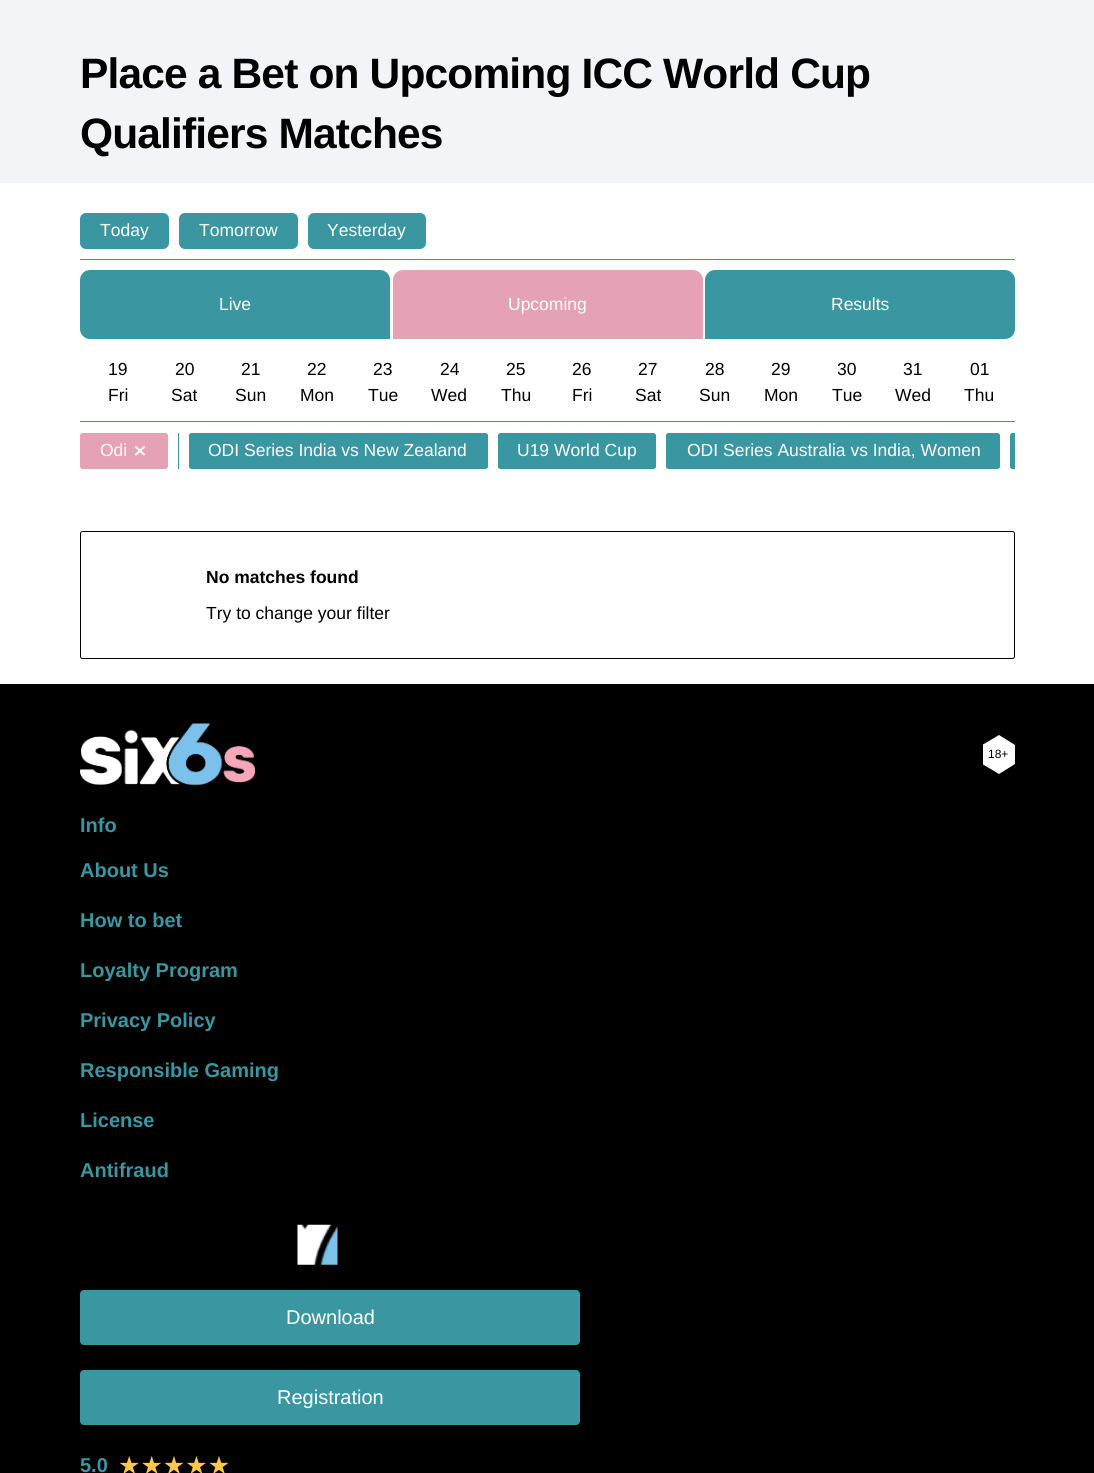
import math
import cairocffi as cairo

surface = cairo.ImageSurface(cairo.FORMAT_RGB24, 1094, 1473)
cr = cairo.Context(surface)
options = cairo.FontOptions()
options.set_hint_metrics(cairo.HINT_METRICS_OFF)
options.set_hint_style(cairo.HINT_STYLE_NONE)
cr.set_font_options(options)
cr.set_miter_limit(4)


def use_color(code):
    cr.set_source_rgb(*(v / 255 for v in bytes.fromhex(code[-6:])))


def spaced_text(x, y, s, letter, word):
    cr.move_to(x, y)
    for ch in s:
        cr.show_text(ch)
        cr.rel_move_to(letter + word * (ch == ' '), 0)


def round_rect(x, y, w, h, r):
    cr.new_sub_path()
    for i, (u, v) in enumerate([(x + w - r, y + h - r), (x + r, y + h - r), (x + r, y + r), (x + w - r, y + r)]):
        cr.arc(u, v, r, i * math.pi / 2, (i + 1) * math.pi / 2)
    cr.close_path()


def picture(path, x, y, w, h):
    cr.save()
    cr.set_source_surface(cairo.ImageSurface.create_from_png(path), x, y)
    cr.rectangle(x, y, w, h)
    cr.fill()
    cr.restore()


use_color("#ffffff")
cr.paint()
use_color("#f2f4f7")
cr.rectangle(0, 0, 1094, 183)
cr.fill()
cr.select_font_face("Liberation Sans", cairo.FONT_SLANT_NORMAL, cairo.FONT_WEIGHT_BOLD)
cr.set_font_size(42.5)
use_color("#000000")
spaced_text(80, 88, "Place a Bet on Upcoming ICC World Cup", -0.85, 0)
spaced_text(80, 148, "Qualifiers Matches", -0.85, 0)
use_color("#3a96a1")
cr.rectangle(80, 259, 935, 1)
cr.fill()
round_rect(80, 213, 89, 36, 6)
cr.fill()
cr.select_font_face("Liberation Sans")
cr.set_font_size(17.5)
use_color("#ffffff")
cr.move_to(100, 236)
cr.show_text("Today")
use_color("#3a96a1")
round_rect(179, 213, 119, 36, 6)
cr.fill()
use_color("#ffffff")
cr.move_to(199, 236)
cr.show_text("Tomorrow")
use_color("#3a96a1")
round_rect(308, 213, 118, 36, 6)
cr.fill()
use_color("#ffffff")
cr.move_to(327, 236)
cr.show_text("Yesterday")
use_color("#3a96a1")
cr.new_path()
cr.move_to(90, 270)
cr.line_to(380, 270)
cr.curve_to(385.5, 270, 390, 274.5, 390, 280)
cr.line_to(390, 339)
cr.line_to(90, 339)
cr.curve_to(84.5, 339, 80, 334.5, 80, 329)
cr.line_to(80, 280)
cr.curve_to(80, 274.5, 84.5, 270, 90, 270)
cr.close_path()
cr.fill()
use_color("#ffffff")
cr.move_to(219, 310)
cr.show_text("Live")
use_color("#e5a2b4")
cr.new_path()
cr.move_to(403, 270)
cr.line_to(693, 270)
cr.curve_to(698.5, 270, 703, 274.5, 703, 280)
cr.line_to(703, 339)
cr.line_to(393, 339)
cr.line_to(393, 280)
cr.curve_to(393, 274.5, 397.5, 270, 403, 270)
cr.close_path()
cr.fill()
use_color("#ffffff")
cr.move_to(508, 310)
cr.show_text("Upcoming")
use_color("#3a96a1")
cr.new_path()
cr.move_to(715, 270)
cr.line_to(1005, 270)
cr.curve_to(1010.5, 270, 1015, 274.5, 1015, 280)
cr.line_to(1015, 329)
cr.curve_to(1015, 334.5, 1010.5, 339, 1005, 339)
cr.line_to(705, 339)
cr.line_to(705, 280)
cr.curve_to(705, 274.5, 709.5, 270, 715, 270)
cr.close_path()
cr.fill()
use_color("#ffffff")
cr.move_to(831, 310)
cr.show_text("Results")
use_color("#3a96a1")
cr.rectangle(80, 421, 935, 1)
cr.fill()
use_color("#000000")
cr.move_to(108, 375)
cr.show_text("19")
cr.move_to(108, 401)
cr.show_text("Fri")
cr.move_to(175, 375)
cr.show_text("20")
cr.move_to(171, 401)
cr.show_text("Sat")
cr.move_to(241, 375)
cr.show_text("21")
cr.move_to(235, 401)
cr.show_text("Sun")
cr.move_to(307, 375)
cr.show_text("22")
cr.move_to(300, 401)
cr.show_text("Mon")
cr.move_to(373, 375)
cr.show_text("23")
cr.move_to(368, 401)
cr.show_text("Tue")
cr.move_to(440, 375)
cr.show_text("24")
cr.move_to(431, 401)
cr.show_text("Wed")
cr.move_to(506, 375)
cr.show_text("25")
cr.move_to(501, 401)
cr.show_text("Thu")
cr.move_to(572, 375)
cr.show_text("26")
cr.move_to(572, 401)
cr.show_text("Fri")
cr.move_to(638, 375)
cr.show_text("27")
cr.move_to(635, 401)
cr.show_text("Sat")
cr.move_to(705, 375)
cr.show_text("28")
cr.move_to(699, 401)
cr.show_text("Sun")
cr.move_to(771, 375)
cr.show_text("29")
cr.move_to(764, 401)
cr.show_text("Mon")
cr.move_to(837, 375)
cr.show_text("30")
cr.move_to(832, 401)
cr.show_text("Tue")
cr.move_to(903, 375)
cr.show_text("31")
cr.move_to(895, 401)
cr.show_text("Wed")
cr.move_to(970, 375)
cr.show_text("01")
cr.move_to(964, 401)
cr.show_text("Thu")
use_color("#e5a2b4")
round_rect(80, 433, 88, 36, 2.5)
cr.fill()
use_color("#ffffff")
cr.move_to(100, 456)
cr.show_text("Odi")
cr.new_path()
cr.move_to(144, 447)
cr.line_to(136, 454.5)
cr.move_to(136, 447)
cr.line_to(144, 454.5)
cr.set_line_width(1.9)
cr.set_line_cap(cairo.LINE_CAP_ROUND)
cr.set_line_join(cairo.LINE_JOIN_ROUND)
cr.stroke()
use_color("#3a96a1")
cr.rectangle(178, 433, 1, 36)
cr.fill()
round_rect(189, 433, 299, 36, 2.5)
cr.fill()
use_color("#ffffff")
cr.move_to(208, 456)
cr.show_text("ODI Series India vs New Zealand")
use_color("#3a96a1")
round_rect(498, 433, 158, 36, 2.5)
cr.fill()
use_color("#ffffff")
cr.move_to(517, 456)
cr.show_text("U19 World Cup")
use_color("#3a96a1")
round_rect(666, 433, 334, 36, 2.5)
cr.fill()
use_color("#ffffff")
cr.move_to(687, 456)
cr.show_text("ODI Series Australia vs India, Women")
use_color("#3a96a1")
cr.new_path()
cr.move_to(1012.5, 433)
cr.line_to(1015, 433)
cr.line_to(1015, 469)
cr.line_to(1012.5, 469)
cr.curve_to(1011, 469, 1010, 468, 1010, 466.5)
cr.line_to(1010, 435.5)
cr.curve_to(1010, 434, 1011, 433, 1012.5, 433)
cr.close_path()
cr.fill()
round_rect(80.5, 531.5, 934, 127, 2)
use_color("#000000")
cr.set_line_width(1)
cr.set_line_cap(cairo.LINE_CAP_BUTT)
cr.set_line_join(cairo.LINE_JOIN_MITER)
cr.stroke()
cr.select_font_face("Liberation Sans", cairo.FONT_SLANT_NORMAL, cairo.FONT_WEIGHT_BOLD)
cr.move_to(206, 583)
cr.show_text("No matches found")
cr.select_font_face("Liberation Sans")
cr.move_to(206, 619)
cr.show_text("Try to change your filter")
cr.rectangle(0, 684, 1094, 789)
cr.fill()
picture("img1.png", 80, 723, 175, 62)
use_color("#ffffff")
cr.new_path()
cr.move_to(999, 735)
cr.line_to(1015, 745)
cr.line_to(1015, 764)
cr.line_to(999, 774)
cr.line_to(983, 764.5)
cr.line_to(983, 744.5)
cr.close_path()
cr.fill()
cr.set_font_size(12)
use_color("#000000")
cr.move_to(988, 758)
cr.show_text("18+")
cr.select_font_face("Liberation Sans", cairo.FONT_SLANT_NORMAL, cairo.FONT_WEIGHT_BOLD)
cr.set_font_size(20)
use_color("#3a96a1")
cr.move_to(80, 832)
cr.show_text("Info")
cr.move_to(80, 877)
cr.show_text("About Us")
cr.move_to(80, 927)
cr.show_text("How to bet")
cr.move_to(80, 977)
cr.show_text("Loyalty Program")
cr.move_to(80, 1027)
cr.show_text("Privacy Policy")
cr.move_to(80, 1077)
cr.show_text("Responsible Gaming")
cr.move_to(80, 1127)
cr.show_text("License")
cr.move_to(80, 1177)
cr.show_text("Antifraud")
picture("img2.png", 297, 1224, 41, 41)
round_rect(80.5, 1290.5, 499, 54, 3.5)
cr.fill_preserve()
cr.stroke()
cr.select_font_face("Liberation Sans")
use_color("#ffffff")
cr.move_to(286, 1324)
cr.show_text("Download")
use_color("#3a96a1")
round_rect(80.5, 1370.5, 499, 54, 3.5)
cr.fill_preserve()
cr.stroke()
use_color("#ffffff")
cr.move_to(277, 1404)
cr.show_text("Registration")
cr.select_font_face("Liberation Sans", cairo.FONT_SLANT_NORMAL, cairo.FONT_WEIGHT_BOLD)
use_color("#3a96a1")
cr.move_to(80, 1472)
cr.show_text("5.0")
cr.select_font_face("DejaVu Sans")
cr.set_font_size(25)
gradient = cairo.LinearGradient(118, 1465, 230, 1465)
gradient.add_color_stop_rgba(1, 0.996, 0.784, 0.294, 1)
gradient.add_color_stop_rgba(1, 0.816, 0.835, 0.867, 1)
cr.set_source(gradient)
cr.move_to(118, 1474)
cr.show_text("★★★★★")
surface.write_to_png("result.png")
